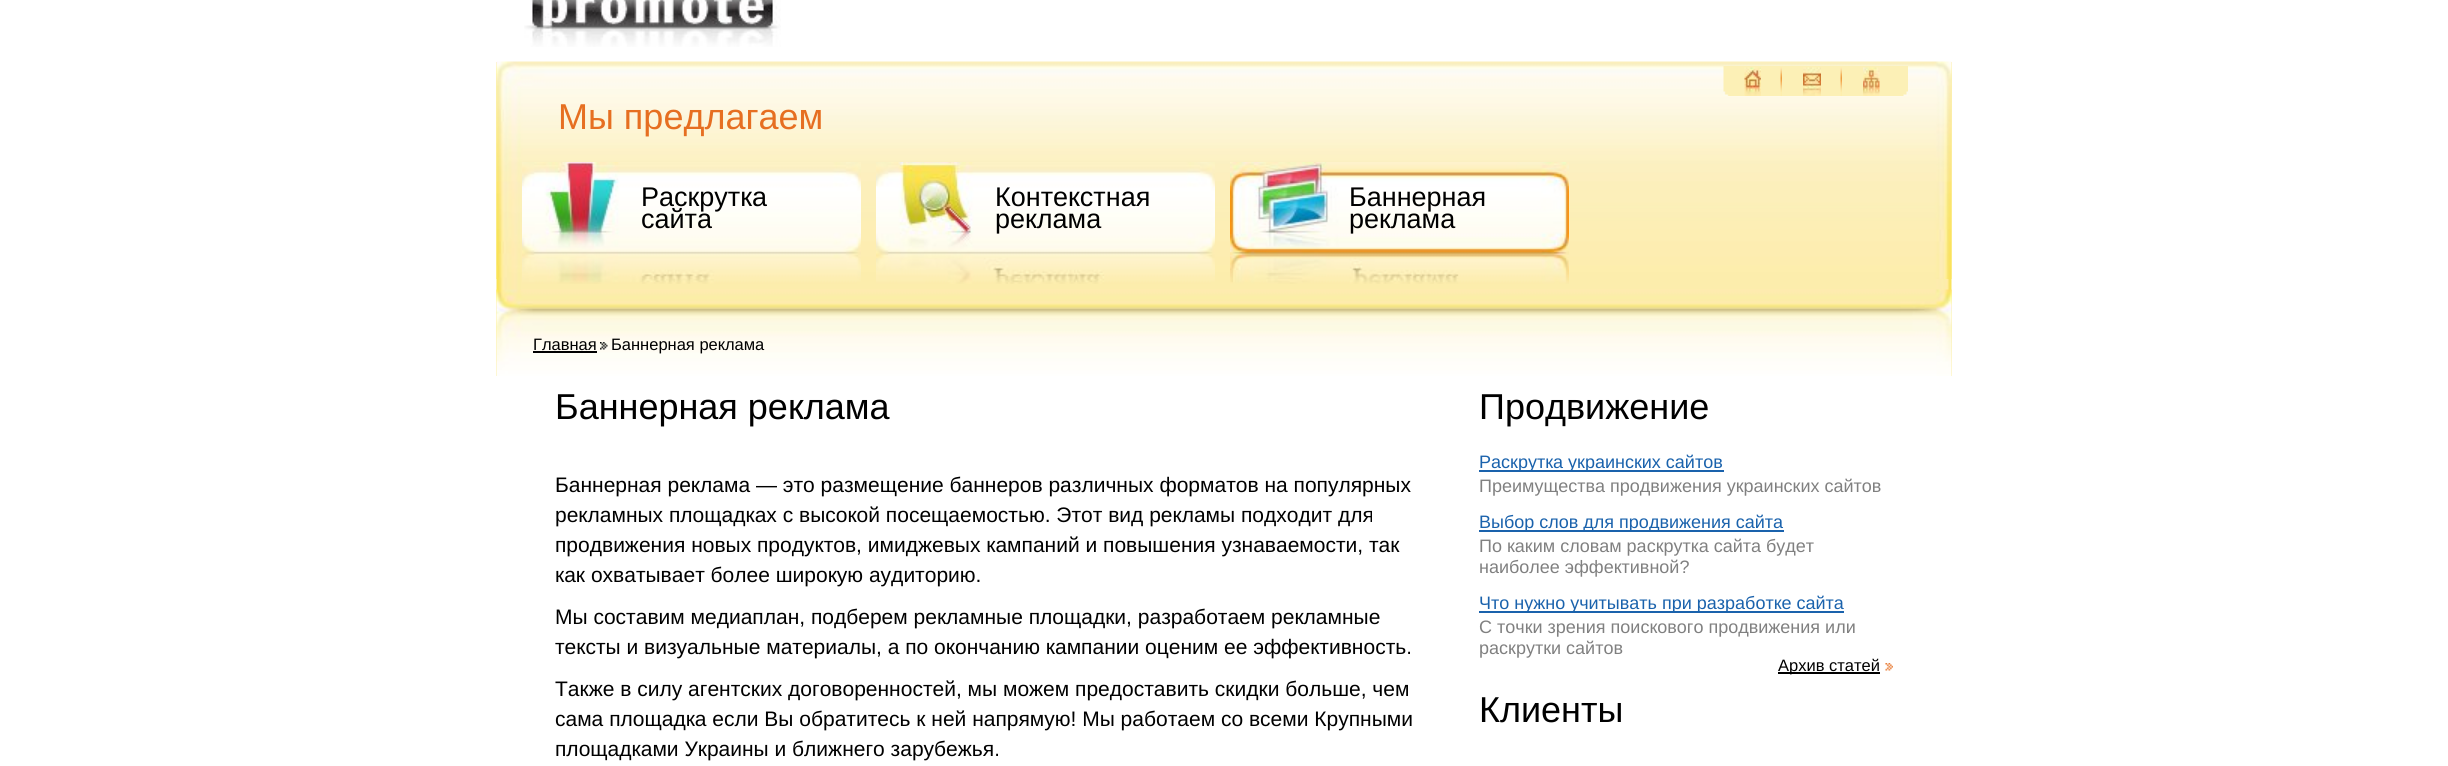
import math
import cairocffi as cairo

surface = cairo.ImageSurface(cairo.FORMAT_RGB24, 2448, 766)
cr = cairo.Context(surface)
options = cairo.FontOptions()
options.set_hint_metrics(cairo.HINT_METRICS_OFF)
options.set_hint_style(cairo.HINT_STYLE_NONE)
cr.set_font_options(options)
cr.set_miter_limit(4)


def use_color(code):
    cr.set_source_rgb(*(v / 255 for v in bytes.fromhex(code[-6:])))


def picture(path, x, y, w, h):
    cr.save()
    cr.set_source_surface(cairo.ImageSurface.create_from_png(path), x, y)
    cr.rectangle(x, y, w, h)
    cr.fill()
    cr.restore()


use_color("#ffffff")
cr.paint()
picture("img1.png", 524, 0, 257, 47)
picture("img2.png", 496, 62, 1456, 314)
picture("img3.png", 496, 61, 1456, 218)
picture("img4.png", 496, 289, 1456, 87)
picture("img5.png", 1723, 66, 185, 30)
picture("img6.png", 1780, 67, 2, 29)
picture("img7.png", 1744, 67, 17, 29)
picture("img6.png", 1840, 67, 2, 29)
picture("img8.png", 1803, 67, 18, 29)
picture("img9.png", 1863, 67, 17, 29)
cr.select_font_face("Liberation Sans")
cr.set_font_size(36)
use_color("#e66f21")
cr.move_to(558, 129)
cr.show_text("Мы предлагаем")
picture("img10.png", 522, 162, 339, 122)
cr.set_font_size(27)
use_color("#000000")
cr.move_to(641, 206)
cr.show_text("Раскрутка")
cr.move_to(641, 228)
cr.show_text("сайта")
picture("img11.png", 876, 162, 339, 122)
cr.move_to(995, 206)
cr.show_text("Контекстная")
cr.move_to(995, 228)
cr.show_text("реклама")
picture("img12.png", 1230, 162, 339, 122)
cr.move_to(1349, 206)
cr.show_text("Баннерная")
cr.move_to(1349, 228)
cr.show_text("реклама")
cr.set_font_size(16.5)
cr.move_to(533, 350)
cr.show_text("Главная")
cr.rectangle(533, 351, 64, 2)
cr.fill()
picture("img13.png", 600, 342, 8, 8)
cr.move_to(611, 350)
cr.show_text("Баннерная реклама")
cr.set_font_size(36)
cr.move_to(555, 419)
cr.show_text("Баннерная реклама")
cr.set_font_size(21)
cr.move_to(555, 492)
cr.show_text("Баннерная реклама — это размещение баннеров различных форматов на популярных")
cr.move_to(555, 522)
cr.show_text("рекламных площадках c высокой посещаемостью. Этот вид рекламы подходит для")
cr.move_to(555, 552)
cr.show_text("продвижения новых продуктов, имиджевых кампаний и повышения узнаваемости, так")
cr.move_to(555, 582)
cr.show_text("как охватывает более широкую аудиторию.")
cr.move_to(555, 624)
cr.show_text("Мы составим медиаплан, подберем рекламные площадки, разработаем рекламные")
cr.move_to(555, 654)
cr.show_text("тексты и визуальные материалы, а по окончанию кампании оценим ее эффективность.")
cr.move_to(555, 696)
cr.show_text("Также в силу агентских договоренностей, мы можем предоставить скидки больше, чем")
cr.move_to(555, 726)
cr.show_text("сама площадка если Вы обратитесь к ней напрямую! Мы работаем со всеми Крупными")
cr.move_to(555, 756)
cr.show_text("площадками Украины и ближнего зарубежья.")
cr.set_font_size(36)
cr.move_to(1479, 419)
cr.show_text("Продвижение")
use_color("#1a62ac")
cr.rectangle(1479, 470, 245, 2)
cr.fill()
cr.set_font_size(18)
cr.move_to(1479, 468)
cr.show_text("Раскрутка украинских сайтов")
use_color("#808080")
cr.move_to(1479, 492)
cr.show_text("Преимущества продвижения украинских сайтов")
use_color("#1a62ac")
cr.rectangle(1479, 530, 305, 2)
cr.fill()
cr.move_to(1479, 528)
cr.show_text("Выбор слов для продвижения сайта")
use_color("#808080")
cr.move_to(1479, 552)
cr.show_text("По каким словам раскрутка сайта будет")
cr.move_to(1479, 573)
cr.show_text("наиболее эффективной?")
use_color("#1a62ac")
cr.rectangle(1479, 611, 365, 2)
cr.fill()
cr.move_to(1479, 609)
cr.show_text("Что нужно учитывать при разработке сайта")
use_color("#808080")
cr.move_to(1479, 633)
cr.show_text("С точки зрения поискового продвижения или")
cr.move_to(1479, 654)
cr.show_text("раскрутки сайтов")
picture("img14.png", 1885, 663, 8, 8)
use_color("#000000")
cr.rectangle(1778, 672, 102, 2)
cr.fill()
cr.set_font_size(16.5)
cr.move_to(1778, 671)
cr.show_text("Архив статей")
cr.set_font_size(36)
cr.move_to(1479, 722)
cr.show_text("Клиенты")
surface.write_to_png("result.png")
